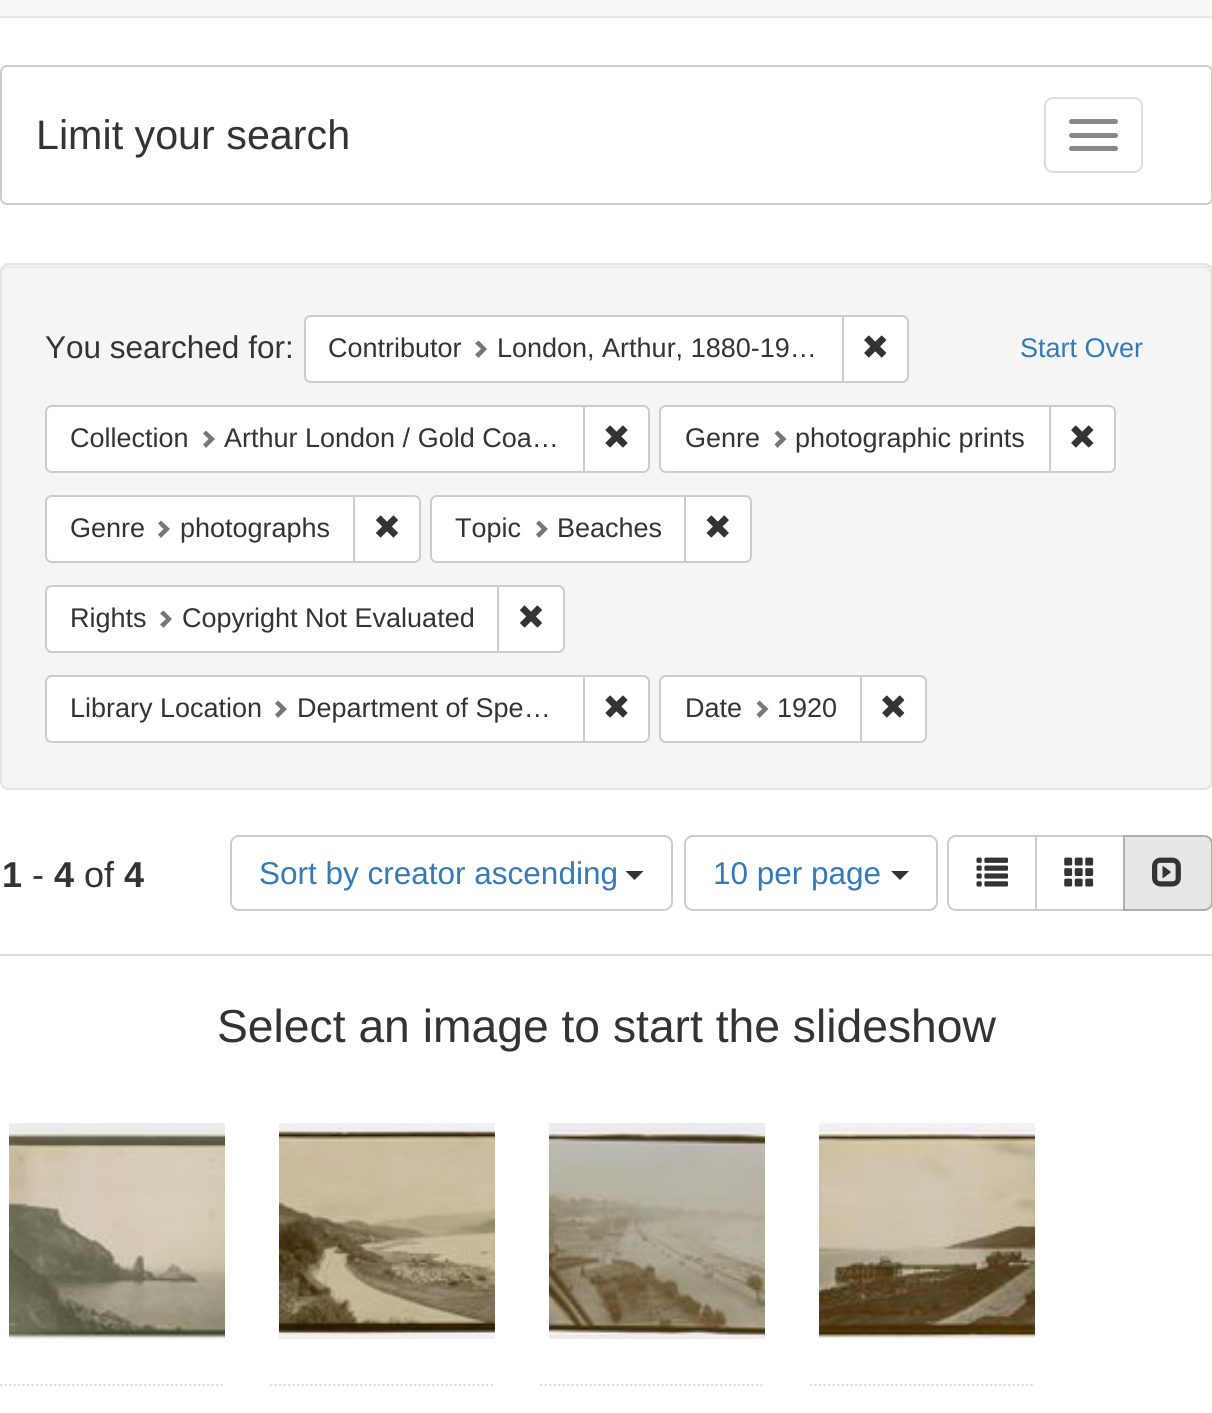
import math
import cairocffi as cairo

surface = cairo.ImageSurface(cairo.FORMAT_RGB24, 1212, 1413)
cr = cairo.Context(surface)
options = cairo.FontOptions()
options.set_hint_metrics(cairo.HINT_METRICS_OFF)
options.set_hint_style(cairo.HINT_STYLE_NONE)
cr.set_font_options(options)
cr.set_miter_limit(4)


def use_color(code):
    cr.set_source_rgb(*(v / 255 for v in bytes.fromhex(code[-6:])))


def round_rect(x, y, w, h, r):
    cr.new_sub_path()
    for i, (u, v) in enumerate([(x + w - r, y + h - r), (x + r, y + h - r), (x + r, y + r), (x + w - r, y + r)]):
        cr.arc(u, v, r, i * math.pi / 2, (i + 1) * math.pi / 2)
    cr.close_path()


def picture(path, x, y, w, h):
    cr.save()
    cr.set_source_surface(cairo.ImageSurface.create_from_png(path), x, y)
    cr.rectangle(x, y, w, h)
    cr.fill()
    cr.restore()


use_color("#ffffff")
cr.paint()
use_color("#f8f8f8")
cr.rectangle(0, 0, 1212, 16)
cr.fill()
use_color("#e7e7e7")
cr.rectangle(0, 16, 1212, 2)
cr.fill()
round_rect(1, 66, 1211, 138, 6)
use_color("#cccccc")
cr.stroke()
cr.select_font_face("Liberation Sans")
cr.set_font_size(41.25)
use_color("#333333")
cr.move_to(36, 149)
cr.show_text("Limit your search")
round_rect(1045, 98, 97, 74, 8)
use_color("#dddddd")
cr.stroke()
use_color("#888888")
round_rect(1069, 119, 49, 5, 2.5)
cr.fill()
round_rect(1069, 133, 49, 5, 2.5)
cr.fill()
round_rect(1069, 146, 49, 5, 2.5)
cr.fill()
use_color("#f5f5f5")
round_rect(0, 263, 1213, 527, 9)
cr.fill()
use_color("#e9e9e9")
cr.new_path()
cr.move_to(9, 268)
cr.line_to(1204, 268)
cr.curve_to(1207, 268, 1210, 271, 1210, 274)
cr.line_to(1210, 785)
cr.curve_to(1211, 784, 1211, 782, 1211, 781)
cr.line_to(1211, 273)
cr.curve_to(1211, 269, 1208, 266, 1204, 266)
cr.line_to(9, 266)
cr.curve_to(5, 266, 2, 269, 2, 273)
cr.line_to(2, 274)
cr.curve_to(2, 271, 5, 268, 9, 268)
cr.close_path()
cr.fill()
round_rect(1, 264, 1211, 525, 8)
use_color("#e3e3e3")
cr.stroke()
cr.set_font_size(31.5)
use_color("#333333")
cr.move_to(45, 358)
cr.show_text("You searched for:")
use_color("#ffffff")
cr.new_path()
cr.move_to(311, 316)
cr.line_to(843, 316)
cr.line_to(843, 382)
cr.line_to(311, 382)
cr.curve_to(307.5, 382, 305, 379.5, 305, 376)
cr.line_to(305, 322)
cr.curve_to(305, 318.5, 307.5, 316, 311, 316)
cr.close_path()
cr.fill_preserve()
use_color("#cccccc")
cr.stroke()
cr.set_font_size(27)
use_color("#333333")
cr.move_to(328, 357)
cr.show_text("Contributor")
use_color("#777777")
cr.new_path()
cr.move_to(487, 349)
cr.line_to(478.5, 358)
cr.line_to(475, 354.5)
cr.line_to(481, 349)
cr.line_to(475, 343.5)
cr.line_to(478.5, 340.5)
cr.close_path()
cr.fill()
use_color("#333333")
cr.move_to(497, 357)
cr.show_text("London, Arthur, 1880-19…")
use_color("#ffffff")
cr.new_path()
cr.move_to(843, 316)
cr.line_to(902, 316)
cr.curve_to(905.5, 316, 908, 318.5, 908, 322)
cr.line_to(908, 376)
cr.curve_to(908, 379.5, 905.5, 382, 902, 382)
cr.line_to(843, 382)
cr.close_path()
cr.fill_preserve()
use_color("#cccccc")
cr.stroke()
picture("img1.png", 864, 335, 23, 23)
use_color("#337ab7")
cr.move_to(1020, 357)
cr.show_text("Start Over")
use_color("#ffffff")
cr.new_path()
cr.move_to(52, 406)
cr.line_to(584, 406)
cr.line_to(584, 472)
cr.line_to(52, 472)
cr.curve_to(48.5, 472, 46, 469.5, 46, 466)
cr.line_to(46, 412)
cr.curve_to(46, 408.5, 48.5, 406, 52, 406)
cr.close_path()
cr.fill_preserve()
use_color("#cccccc")
cr.stroke()
use_color("#333333")
cr.move_to(70, 447)
cr.show_text("Collection")
use_color("#777777")
cr.new_path()
cr.move_to(215, 439)
cr.line_to(206, 448)
cr.line_to(203, 444.5)
cr.line_to(208.5, 439)
cr.line_to(203, 433.5)
cr.line_to(206, 430.5)
cr.close_path()
cr.fill()
use_color("#333333")
cr.move_to(224, 447)
cr.show_text("Arthur London / Gold Coa…")
use_color("#ffffff")
cr.new_path()
cr.move_to(584, 406)
cr.line_to(643, 406)
cr.curve_to(646.5, 406, 649, 408.5, 649, 412)
cr.line_to(649, 466)
cr.curve_to(649, 469.5, 646.5, 472, 643, 472)
cr.line_to(584, 472)
cr.close_path()
cr.fill_preserve()
use_color("#cccccc")
cr.stroke()
picture("img2.png", 605, 425, 23, 23)
use_color("#ffffff")
cr.new_path()
cr.move_to(666, 406)
cr.line_to(1050, 406)
cr.line_to(1050, 472)
cr.line_to(666, 472)
cr.curve_to(662.5, 472, 660, 469.5, 660, 466)
cr.line_to(660, 412)
cr.curve_to(660, 408.5, 662.5, 406, 666, 406)
cr.close_path()
cr.fill_preserve()
use_color("#cccccc")
cr.stroke()
use_color("#333333")
cr.move_to(685, 447)
cr.show_text("Genre")
use_color("#777777")
cr.new_path()
cr.move_to(786.5, 439)
cr.line_to(777.5, 448)
cr.line_to(774.5, 444.5)
cr.line_to(780, 439)
cr.line_to(774.5, 433.5)
cr.line_to(777.5, 430.5)
cr.close_path()
cr.fill()
use_color("#333333")
cr.move_to(795, 447)
cr.show_text("photographic prints")
use_color("#ffffff")
cr.new_path()
cr.move_to(1050, 406)
cr.line_to(1109, 406)
cr.curve_to(1112.5, 406, 1115, 408.5, 1115, 412)
cr.line_to(1115, 466)
cr.curve_to(1115, 469.5, 1112.5, 472, 1109, 472)
cr.line_to(1050, 472)
cr.close_path()
cr.fill_preserve()
use_color("#cccccc")
cr.stroke()
picture("img1.png", 1071, 425, 23, 23)
use_color("#ffffff")
cr.new_path()
cr.move_to(52, 496)
cr.line_to(355, 496)
cr.line_to(355, 562)
cr.line_to(52, 562)
cr.curve_to(48.5, 562, 46, 559.5, 46, 556)
cr.line_to(46, 502)
cr.curve_to(46, 498.5, 48.5, 496, 52, 496)
cr.close_path()
cr.fill_preserve()
use_color("#cccccc")
cr.stroke()
use_color("#333333")
cr.move_to(70, 537)
cr.show_text("Genre")
use_color("#777777")
cr.new_path()
cr.move_to(170, 529)
cr.line_to(161, 538)
cr.line_to(158, 534.5)
cr.line_to(163.5, 529)
cr.line_to(158, 523.5)
cr.line_to(161, 520.5)
cr.close_path()
cr.fill()
use_color("#333333")
cr.move_to(180, 537)
cr.show_text("photographs")
use_color("#ffffff")
cr.new_path()
cr.move_to(354, 496)
cr.line_to(414, 496)
cr.curve_to(417.5, 496, 420, 498.5, 420, 502)
cr.line_to(420, 556)
cr.curve_to(420, 559.5, 417.5, 562, 414, 562)
cr.line_to(354, 562)
cr.close_path()
cr.fill_preserve()
use_color("#cccccc")
cr.stroke()
picture("img3.png", 376, 515, 22, 23)
use_color("#ffffff")
cr.new_path()
cr.move_to(437, 496)
cr.line_to(685, 496)
cr.line_to(685, 562)
cr.line_to(437, 562)
cr.curve_to(433.5, 562, 431, 559.5, 431, 556)
cr.line_to(431, 502)
cr.curve_to(431, 498.5, 433.5, 496, 437, 496)
cr.close_path()
cr.fill_preserve()
use_color("#cccccc")
cr.stroke()
use_color("#333333")
cr.move_to(455, 537)
cr.show_text("Topic")
use_color("#777777")
cr.new_path()
cr.move_to(548, 529)
cr.line_to(539, 538)
cr.line_to(536, 534.5)
cr.line_to(541.5, 529)
cr.line_to(536, 523.5)
cr.line_to(539, 520.5)
cr.close_path()
cr.fill()
use_color("#333333")
cr.move_to(557, 537)
cr.show_text("Beaches")
use_color("#ffffff")
cr.new_path()
cr.move_to(685, 496)
cr.line_to(745, 496)
cr.curve_to(748.5, 496, 751, 498.5, 751, 502)
cr.line_to(751, 556)
cr.curve_to(751, 559.5, 748.5, 562, 745, 562)
cr.line_to(685, 562)
cr.close_path()
cr.fill_preserve()
use_color("#cccccc")
cr.stroke()
picture("img4.png", 706, 515, 23, 23)
use_color("#ffffff")
cr.new_path()
cr.move_to(52, 586)
cr.line_to(499, 586)
cr.line_to(499, 652)
cr.line_to(52, 652)
cr.curve_to(48.5, 652, 46, 649.5, 46, 646)
cr.line_to(46, 592)
cr.curve_to(46, 588.5, 48.5, 586, 52, 586)
cr.close_path()
cr.fill_preserve()
use_color("#cccccc")
cr.stroke()
use_color("#333333")
cr.move_to(70, 627)
cr.show_text("Rights")
use_color("#777777")
cr.new_path()
cr.move_to(172, 619)
cr.line_to(163.5, 628)
cr.line_to(160, 624.5)
cr.line_to(166, 619)
cr.line_to(160, 613.5)
cr.line_to(163.5, 610.5)
cr.close_path()
cr.fill()
use_color("#333333")
cr.move_to(182, 627)
cr.show_text("Copyright Not Evaluated")
use_color("#ffffff")
cr.new_path()
cr.move_to(498, 586)
cr.line_to(558, 586)
cr.curve_to(561.5, 586, 564, 588.5, 564, 592)
cr.line_to(564, 646)
cr.curve_to(564, 649.5, 561.5, 652, 558, 652)
cr.line_to(498, 652)
cr.close_path()
cr.fill_preserve()
use_color("#cccccc")
cr.stroke()
picture("img3.png", 520, 605, 22, 23)
use_color("#ffffff")
cr.new_path()
cr.move_to(52, 676)
cr.line_to(584, 676)
cr.line_to(584, 742)
cr.line_to(52, 742)
cr.curve_to(48.5, 742, 46, 739.5, 46, 736)
cr.line_to(46, 682)
cr.curve_to(46, 678.5, 48.5, 676, 52, 676)
cr.close_path()
cr.fill_preserve()
use_color("#cccccc")
cr.stroke()
use_color("#333333")
cr.move_to(70, 717)
cr.show_text("Library Location")
use_color("#777777")
cr.new_path()
cr.move_to(287, 709)
cr.line_to(278, 718)
cr.line_to(275, 714.5)
cr.line_to(280.5, 709)
cr.line_to(275, 703.5)
cr.line_to(278, 700.5)
cr.close_path()
cr.fill()
use_color("#333333")
cr.move_to(297, 717)
cr.show_text("Department of Spe…")
use_color("#ffffff")
cr.new_path()
cr.move_to(584, 676)
cr.line_to(643, 676)
cr.curve_to(646.5, 676, 649, 678.5, 649, 682)
cr.line_to(649, 736)
cr.curve_to(649, 739.5, 646.5, 742, 643, 742)
cr.line_to(584, 742)
cr.close_path()
cr.fill_preserve()
use_color("#cccccc")
cr.stroke()
picture("img2.png", 605, 695, 23, 23)
use_color("#ffffff")
cr.new_path()
cr.move_to(666, 676)
cr.line_to(861, 676)
cr.line_to(861, 742)
cr.line_to(666, 742)
cr.curve_to(662.5, 742, 660, 739.5, 660, 736)
cr.line_to(660, 682)
cr.curve_to(660, 678.5, 662.5, 676, 666, 676)
cr.close_path()
cr.fill_preserve()
use_color("#cccccc")
cr.stroke()
use_color("#333333")
cr.move_to(685, 717)
cr.show_text("Date")
use_color("#777777")
cr.new_path()
cr.move_to(768.5, 709)
cr.line_to(759.5, 718)
cr.line_to(756.5, 714.5)
cr.line_to(762, 709)
cr.line_to(756.5, 703.5)
cr.line_to(759.5, 700.5)
cr.close_path()
cr.fill()
use_color("#333333")
cr.move_to(777, 717)
cr.show_text("1920")
use_color("#ffffff")
cr.new_path()
cr.move_to(861, 676)
cr.line_to(920, 676)
cr.curve_to(923.5, 676, 926, 678.5, 926, 682)
cr.line_to(926, 736)
cr.curve_to(926, 739.5, 923.5, 742, 920, 742)
cr.line_to(861, 742)
cr.close_path()
cr.fill_preserve()
use_color("#cccccc")
cr.stroke()
picture("img1.png", 882, 695, 23, 23)
use_color("#dddddd")
cr.rectangle(0, 954, 1212, 2)
cr.fill()
cr.select_font_face("Liberation Sans", cairo.FONT_SLANT_NORMAL, cairo.FONT_WEIGHT_BOLD)
cr.set_font_size(36)
use_color("#333333")
cr.move_to(2, 887)
cr.show_text("1")
cr.select_font_face("Liberation Sans")
cr.move_to(32, 887)
cr.show_text("-")
cr.select_font_face("Liberation Sans", cairo.FONT_SLANT_NORMAL, cairo.FONT_WEIGHT_BOLD)
cr.move_to(54, 887)
cr.show_text("4")
cr.select_font_face("Liberation Sans")
cr.move_to(84, 887)
cr.show_text("of")
cr.select_font_face("Liberation Sans", cairo.FONT_SLANT_NORMAL, cairo.FONT_WEIGHT_BOLD)
cr.move_to(124, 887)
cr.show_text("4")
round_rect(231, 836, 441, 74, 8)
use_color("#cccccc")
cr.stroke()
cr.select_font_face("Liberation Sans")
cr.set_font_size(31.5)
use_color("#337ab7")
cr.move_to(259, 884)
cr.show_text("Sort by creator ascending")
use_color("#333333")
cr.new_path()
cr.move_to(625.5, 871)
cr.line_to(643.5, 871)
cr.line_to(634.5, 880)
cr.close_path()
cr.fill()
round_rect(685, 836, 252, 74, 8)
use_color("#cccccc")
cr.stroke()
use_color("#337ab7")
cr.move_to(713, 884)
cr.show_text("10 per page")
use_color("#333333")
cr.new_path()
cr.move_to(891, 871)
cr.line_to(909, 871)
cr.line_to(900, 880)
cr.close_path()
cr.fill()
cr.new_path()
cr.move_to(956, 836)
cr.line_to(1036, 836)
cr.line_to(1036, 910)
cr.line_to(956, 910)
cr.curve_to(951.5, 910, 948, 906.5, 948, 902)
cr.line_to(948, 844)
cr.curve_to(948, 839.5, 951.5, 836, 956, 836)
cr.close_path()
use_color("#cccccc")
cr.stroke()
picture("img5.png", 976, 857, 32, 30)
cr.rectangle(1036, 836, 88, 74)
cr.stroke()
picture("img6.png", 1064, 857, 30, 30)
use_color("#e6e6e6")
cr.new_path()
cr.move_to(1124, 836)
cr.line_to(1204, 836)
cr.curve_to(1208.5, 836, 1212, 839.5, 1212, 844)
cr.line_to(1212, 902)
cr.curve_to(1212, 906.5, 1208.5, 910, 1204, 910)
cr.line_to(1124, 910)
cr.close_path()
cr.fill_preserve()
use_color("#adadad")
cr.stroke()
picture("img7.png", 1152, 857, 29, 30)
cr.set_font_size(46.25)
use_color("#333333")
cr.move_to(217, 1042)
cr.show_text("Select an image to start the slideshow")
cr.new_path()
cr.move_to(0, 1385)
cr.line_to(225, 1385)
use_color("#dddddd")
cr.set_line_width(2.2)
cr.set_dash([2.25, 2.25])
cr.stroke()
picture("img8.png", 9, 1123, 216, 216)
cr.new_path()
cr.move_to(270, 1385)
cr.line_to(495, 1385)
cr.stroke()
picture("img9.png", 279, 1123, 216, 216)
cr.new_path()
cr.move_to(540, 1385)
cr.line_to(765, 1385)
cr.stroke()
picture("img10.png", 549, 1123, 216, 216)
cr.new_path()
cr.move_to(810, 1385)
cr.line_to(1035, 1385)
cr.stroke()
picture("img11.png", 819, 1123, 216, 216)
surface.write_to_png("result.png")
